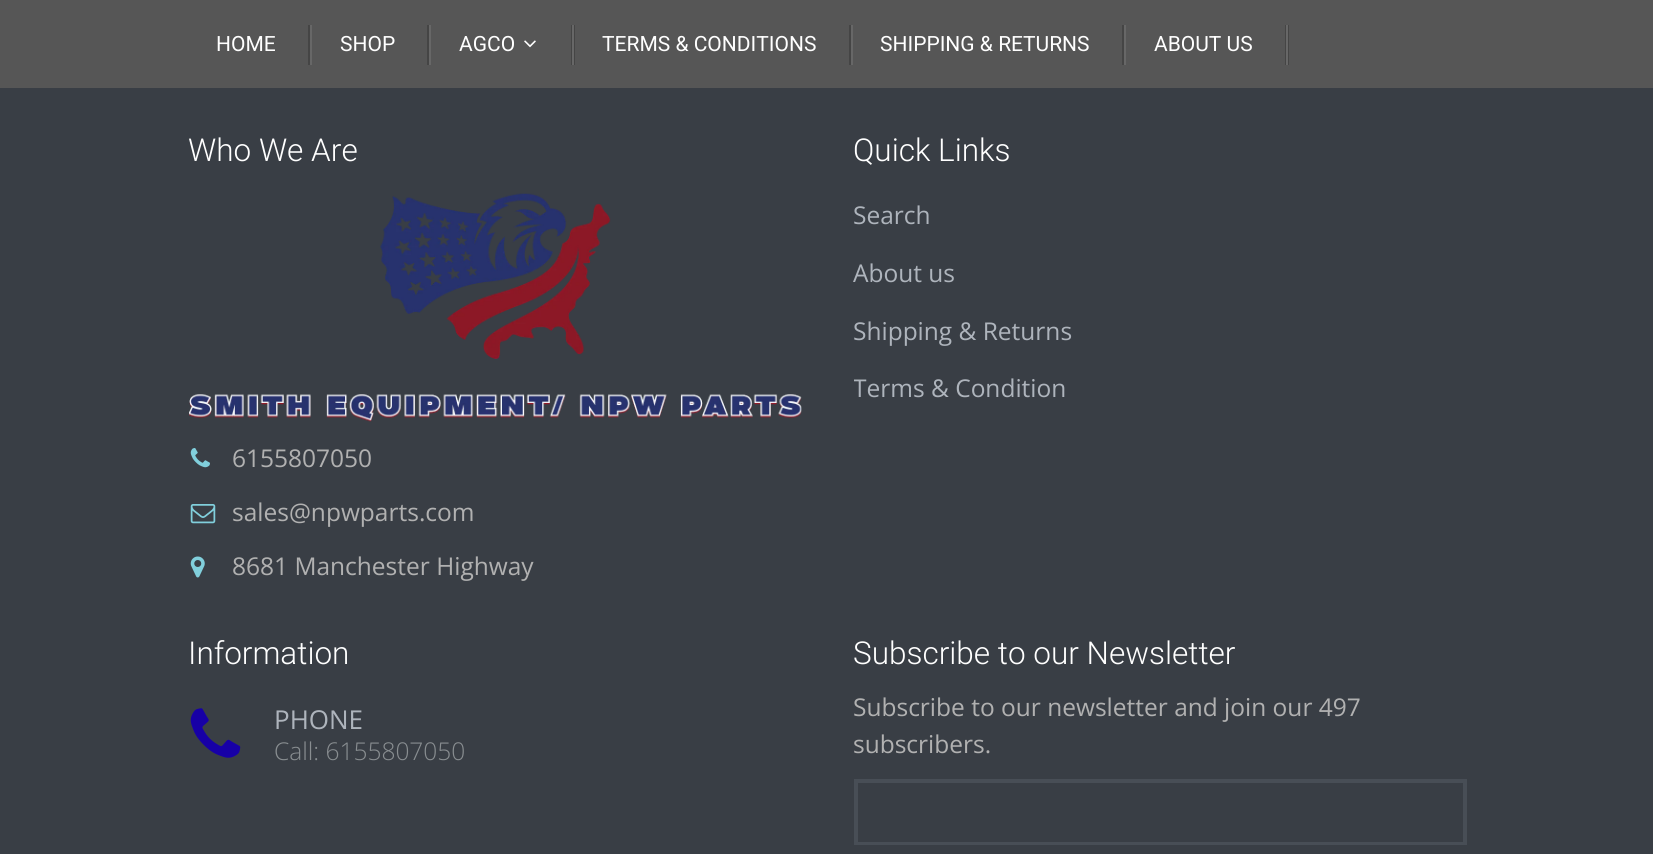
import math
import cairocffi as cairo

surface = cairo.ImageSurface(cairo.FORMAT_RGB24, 1653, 854)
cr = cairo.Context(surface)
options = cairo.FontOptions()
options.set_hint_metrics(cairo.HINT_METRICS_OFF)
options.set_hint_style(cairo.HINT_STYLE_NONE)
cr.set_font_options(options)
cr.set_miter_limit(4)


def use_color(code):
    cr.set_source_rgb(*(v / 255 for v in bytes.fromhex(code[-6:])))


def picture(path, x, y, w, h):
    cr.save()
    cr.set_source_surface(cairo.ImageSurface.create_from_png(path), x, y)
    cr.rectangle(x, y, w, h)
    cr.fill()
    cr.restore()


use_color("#393e45")
cr.paint()
use_color("#565656")
cr.rectangle(0, 0, 1653, 88)
cr.fill()
cr.select_font_face("Roboto")
cr.set_font_size(21)
use_color("#ffffff")
cr.move_to(216, 51)
cr.show_text("HOME")
use_color("#454545")
cr.rectangle(308, 25, 2, 40)
cr.fill()
use_color("#676767")
cr.rectangle(310, 25, 2, 40)
cr.fill()
use_color("#ffffff")
cr.move_to(340, 51)
cr.show_text("SHOP")
use_color("#454545")
cr.rectangle(427, 25, 2, 40)
cr.fill()
use_color("#676767")
cr.rectangle(429, 25, 2, 40)
cr.fill()
use_color("#ffffff")
cr.move_to(459, 51)
cr.show_text("AGCO")
picture("img1.png", 524, 40, 12, 8)
use_color("#454545")
cr.rectangle(571, 25, 4, 40)
cr.fill()
use_color("#676767")
cr.rectangle(572, 25, 2, 40)
cr.fill()
use_color("#ffffff")
cr.move_to(602, 51)
cr.show_text("TERMS & CONDITIONS")
use_color("#454545")
cr.rectangle(849, 25, 2, 40)
cr.fill()
use_color("#676767")
cr.rectangle(851, 25, 2, 40)
cr.fill()
use_color("#ffffff")
cr.move_to(880, 51)
cr.show_text("SHIPPING & RETURNS")
use_color("#454545")
cr.rectangle(1122, 25, 2, 40)
cr.fill()
use_color("#676767")
cr.rectangle(1124, 25, 2, 40)
cr.fill()
use_color("#ffffff")
cr.move_to(1154, 51)
cr.show_text("ABOUT US")
use_color("#454545")
cr.rectangle(1285, 25, 4, 40)
cr.fill()
use_color("#676767")
cr.rectangle(1286, 25, 2, 40)
cr.fill()
cr.select_font_face("Roboto Light")
cr.set_font_size(31.5)
use_color("#ffffff")
cr.move_to(188, 161)
cr.show_text("Who We Are")
picture("img2.png", 189, 193, 613, 229)
picture("img3.png", 190, 448, 20, 20)
cr.select_font_face("Open Sans")
cr.set_font_size(24.5)
use_color("#b1b1b1")
cr.move_to(232, 467)
cr.show_text("6155807050")
picture("img4.png", 190, 504, 26, 20)
cr.move_to(232, 521)
cr.show_text("sales@npwparts.com")
picture("img5.png", 190, 556, 15, 22)
cr.move_to(232, 575)
cr.show_text("8681 Manchester Highway")
cr.select_font_face("Roboto Light")
cr.set_font_size(31.5)
use_color("#ffffff")
cr.move_to(853, 161)
cr.show_text("Quick Links")
cr.select_font_face("Open Sans")
cr.set_font_size(24.5)
use_color("#aeb4bc")
cr.move_to(853, 224)
cr.show_text("Search")
cr.move_to(853, 282)
cr.show_text("About us")
cr.move_to(853, 340)
cr.show_text("Shipping & Returns")
cr.save()
cr.rectangle(854, 133, 613, 284)
cr.clip()
cr.move_to(853, 397)
cr.show_text("Terms & Condition")
cr.restore()
cr.select_font_face("Roboto Light")
cr.set_font_size(31.5)
use_color("#ffffff")
cr.move_to(188, 664)
cr.show_text("Information")
picture("img6.png", 190, 708, 51, 50)
cr.select_font_face("Open Sans")
cr.set_font_size(26)
use_color("#aeb4bc")
cr.move_to(274, 729)
cr.show_text("PHONE")
cr.select_font_face("Open Sans Light")
cr.set_font_size(24.5)
use_color("#898e91")
cr.move_to(274, 760)
cr.show_text("Call: 6155807050")
cr.select_font_face("Roboto Light")
cr.set_font_size(31.5)
use_color("#ffffff")
cr.move_to(853, 664)
cr.show_text("Subscribe to our Newsletter")
cr.select_font_face("Open Sans")
cr.set_font_size(24.5)
use_color("#b1b1b1")
cr.move_to(853, 716)
cr.show_text("Subscribe to our newsletter and join our 497")
cr.move_to(853, 753)
cr.show_text("subscribers.")
cr.rectangle(857, 782, 607, 61)
use_color("#484e56")
cr.stroke()
cr.rectangle(855, 780, 611, 64)
cr.stroke()
surface.write_to_png("result.png")
